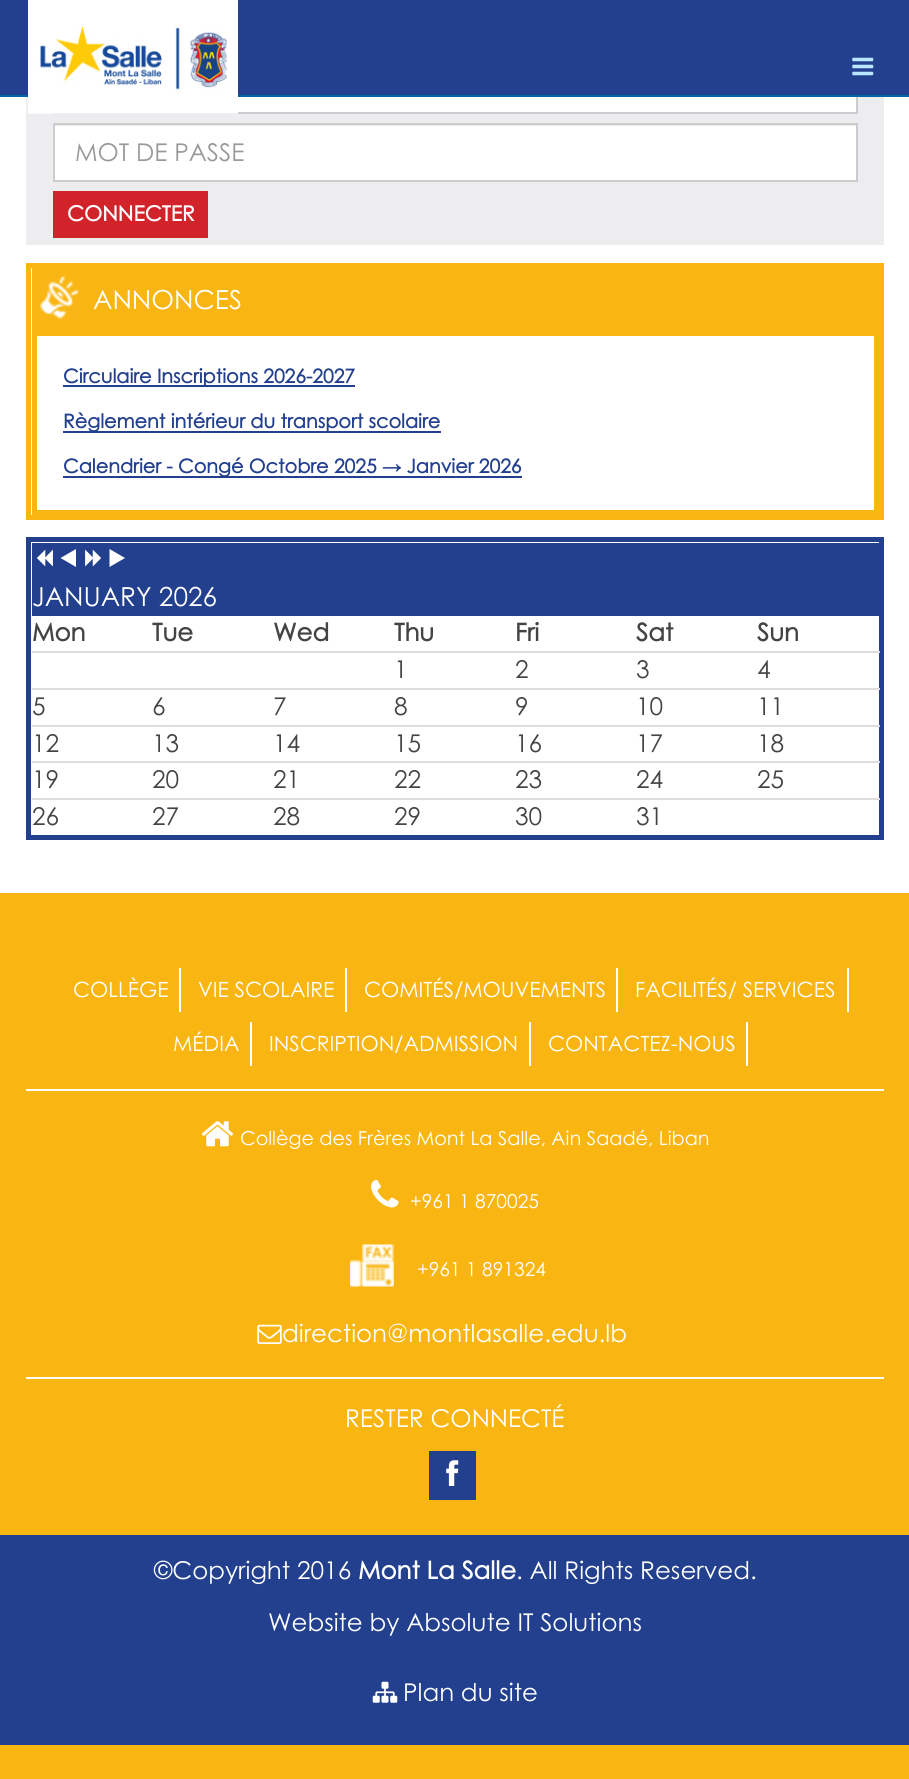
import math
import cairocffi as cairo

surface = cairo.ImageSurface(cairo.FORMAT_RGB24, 909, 1779)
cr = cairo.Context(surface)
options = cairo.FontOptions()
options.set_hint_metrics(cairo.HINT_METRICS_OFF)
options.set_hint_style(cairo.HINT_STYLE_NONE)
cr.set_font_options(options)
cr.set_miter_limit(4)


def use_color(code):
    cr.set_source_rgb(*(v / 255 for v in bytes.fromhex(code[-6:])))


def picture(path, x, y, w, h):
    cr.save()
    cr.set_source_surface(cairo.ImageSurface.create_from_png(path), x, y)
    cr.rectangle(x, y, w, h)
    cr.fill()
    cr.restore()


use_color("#ffffff")
cr.paint()
use_color("#ededef")
cr.rectangle(26, 97, 858, 148)
cr.fill()
use_color("#ffffff")
cr.rectangle(238, 97, 618, 15)
cr.fill()
cr.rectangle(54, 55, 803, 58)
use_color("#cccccc")
cr.stroke()
use_color("#23408f")
cr.rectangle(0, 0, 909, 95)
cr.fill()
use_color("#0067a2")
cr.rectangle(0, 95, 909, 2)
cr.fill()
picture("img1.png", 28, 0, 210, 114)
picture("img2.png", 852, 57, 22, 19)
use_color("#ffffff")
cr.rectangle(55, 126, 801, 54)
cr.fill()
use_color("#ececec")
cr.rectangle(54, 125, 802, 1)
cr.fill()
cr.rectangle(54, 124, 803, 57)
use_color("#cccccc")
cr.stroke()
cr.select_font_face("Century Gothic")
cr.set_font_size(24.5)
use_color("#999999")
cr.move_to(75, 161)
cr.show_text("MOT DE PASSE")
use_color("#d2232a")
cr.rectangle(53, 191, 155, 47)
cr.fill()
cr.select_font_face("Century Gothic", cairo.FONT_SLANT_NORMAL, cairo.FONT_WEIGHT_BOLD)
cr.set_font_size(21)
use_color("#ffffff")
cr.move_to(67, 221)
cr.show_text("CONNECTER")
cr.rectangle(28.5, 265.5, 853, 252)
use_color("#f9b512")
cr.set_line_width(5)
cr.stroke()
cr.rectangle(32, 268, 847, 63)
cr.fill()
picture("img3.png", 39, 276, 41, 44)
cr.select_font_face("Century Gothic")
cr.set_font_size(26.25)
use_color("#ffffff")
cr.move_to(93, 309)
cr.show_text("ANNONCES")
cr.rectangle(34.5, 333.5, 842, 179)
use_color("#f9b512")
cr.stroke()
use_color("#23408f")
cr.rectangle(63, 385, 292, 2)
cr.fill()
cr.select_font_face("Century Gothic", cairo.FONT_SLANT_NORMAL, cairo.FONT_WEIGHT_BOLD)
cr.set_font_size(19.25)
cr.move_to(63, 383)
cr.show_text("Circulaire Inscriptions 2026-2027")
cr.rectangle(63, 431, 378, 2)
cr.fill()
cr.move_to(63, 428)
cr.show_text("Règlement intérieur du transport scolaire")
cr.rectangle(63, 476, 459, 2)
cr.fill()
cr.move_to(63, 473)
cr.show_text("Calendrier - Congé Octobre 2025 → Janvier 2026")
cr.rectangle(28.5, 539.5, 853, 298)
cr.stroke()
cr.rectangle(32, 543, 847, 73)
cr.fill()
picture("img4.png", 37, 549, 16, 18)
use_color("#ffffff")
cr.new_path()
cr.move_to(76, 567)
cr.line_to(60.5, 558)
cr.line_to(76, 549)
cr.close_path()
cr.fill()
picture("img5.png", 85, 549, 16, 18)
cr.new_path()
cr.move_to(109.5, 549)
cr.line_to(125, 558)
cr.line_to(109.5, 567)
cr.close_path()
cr.fill()
cr.select_font_face("Century Gothic")
cr.set_font_size(26.25)
cr.move_to(32, 606)
cr.show_text("JANUARY 2026")
cr.select_font_face("Century Gothic", cairo.FONT_SLANT_NORMAL, cairo.FONT_WEIGHT_BOLD)
cr.set_font_size(24.5)
use_color("#444444")
cr.move_to(32, 641)
cr.show_text("Mon")
cr.move_to(152, 641)
cr.show_text("Tue")
cr.move_to(273, 641)
cr.show_text("Wed")
cr.move_to(394, 641)
cr.show_text("Thu")
cr.move_to(515, 641)
cr.show_text("Fri")
cr.move_to(636, 641)
cr.show_text("Sat")
cr.move_to(757, 641)
cr.show_text("Sun")
cr.select_font_face("Century Gothic")
cr.move_to(394, 678)
cr.show_text("1")
cr.move_to(515, 678)
cr.show_text("2")
cr.move_to(636, 678)
cr.show_text("3")
use_color("#dddddd")
cr.rectangle(32, 651, 848, 2)
cr.fill()
use_color("#444444")
cr.move_to(757, 678)
cr.show_text("4")
cr.move_to(32, 715)
cr.show_text("5")
cr.move_to(152, 715)
cr.show_text("6")
cr.move_to(273, 715)
cr.show_text("7")
cr.move_to(394, 715)
cr.show_text("8")
cr.move_to(515, 715)
cr.show_text("9")
cr.move_to(636, 715)
cr.show_text("10")
use_color("#dddddd")
cr.rectangle(32, 688, 848, 2)
cr.fill()
use_color("#444444")
cr.move_to(757, 715)
cr.show_text("11")
cr.move_to(32, 752)
cr.show_text("12")
cr.move_to(152, 752)
cr.show_text("13")
cr.move_to(273, 752)
cr.show_text("14")
cr.move_to(394, 752)
cr.show_text("15")
cr.move_to(515, 752)
cr.show_text("16")
cr.move_to(636, 752)
cr.show_text("17")
use_color("#dddddd")
cr.rectangle(32, 725, 848, 2)
cr.fill()
use_color("#444444")
cr.move_to(757, 752)
cr.show_text("18")
cr.move_to(32, 788)
cr.show_text("19")
cr.move_to(152, 788)
cr.show_text("20")
cr.move_to(273, 788)
cr.show_text("21")
cr.move_to(394, 788)
cr.show_text("22")
cr.move_to(515, 788)
cr.show_text("23")
cr.move_to(636, 788)
cr.show_text("24")
use_color("#dddddd")
cr.rectangle(32, 761, 848, 2)
cr.fill()
use_color("#444444")
cr.move_to(757, 788)
cr.show_text("25")
use_color("#dddddd")
cr.rectangle(32, 798, 848, 2)
cr.fill()
use_color("#444444")
cr.move_to(32, 825)
cr.show_text("26")
cr.move_to(152, 825)
cr.show_text("27")
cr.move_to(273, 825)
cr.show_text("28")
cr.move_to(394, 825)
cr.show_text("29")
cr.move_to(515, 825)
cr.show_text("30")
cr.move_to(636, 825)
cr.show_text("31")
use_color("#f9b512")
cr.rectangle(0, 893, 909, 886)
cr.fill()
use_color("#ffffff")
cr.rectangle(26, 1089, 858, 2)
cr.fill()
cr.rectangle(179, 968, 2, 44)
cr.fill()
cr.set_font_size(21)
cr.move_to(73, 997)
cr.show_text("COLLÈGE")
cr.rectangle(345, 968, 2, 44)
cr.fill()
cr.move_to(198, 997)
cr.show_text("VIE SCOLAIRE")
cr.rectangle(616, 968, 2, 44)
cr.fill()
cr.move_to(364, 997)
cr.show_text("COMITÉS/MOUVEMENTS")
cr.rectangle(847, 968, 2, 44)
cr.fill()
cr.move_to(635, 997)
cr.show_text("FACILITÉS/ SERVICES")
cr.rectangle(250, 1022, 2, 44)
cr.fill()
cr.move_to(173, 1051)
cr.show_text("MÉDIA")
cr.rectangle(529, 1022, 2, 44)
cr.fill()
cr.move_to(269, 1051)
cr.show_text("INSCRIPTION/ADMISSION")
cr.rectangle(746, 1022, 2, 44)
cr.fill()
cr.move_to(548, 1051)
cr.show_text("CONTACTEZ-NOUS")
picture("img6.png", 201, 1121, 33, 26)
cr.set_font_size(19.25)
cr.move_to(240, 1145)
cr.show_text("Collège des Frères Mont La Salle, Ain Saadé, Liban")
picture("img7.png", 371, 1180, 28, 28)
cr.move_to(410, 1208)
cr.show_text("+961 1 870025")
picture("img8.png", 350, 1244, 44, 43)
cr.move_to(417, 1276)
cr.show_text("+961 1 891324")
picture("img9.png", 257, 1324, 25, 20)
cr.set_font_size(24.5)
cr.move_to(282, 1342)
cr.show_text("direction@montlasalle.edu.lb")
cr.rectangle(26, 1377, 858, 2)
cr.fill()
cr.move_to(345, 1427)
cr.show_text("RESTER CONNECTÉ")
use_color("#23408f")
cr.rectangle(429, 1451, 47, 49)
cr.fill()
picture("img10.png", 446, 1460, 13, 26)
cr.rectangle(0, 1535, 909, 210)
cr.fill()
use_color("#ffffff")
cr.move_to(154, 1579)
cr.show_text("©Copyright 2016")
cr.select_font_face("Century Gothic", cairo.FONT_SLANT_NORMAL, cairo.FONT_WEIGHT_BOLD)
cr.move_to(358, 1579)
cr.show_text("Mont La Salle")
cr.select_font_face("Century Gothic")
cr.move_to(516, 1579)
cr.show_text(". All Rights Reserved.")
cr.move_to(268, 1631)
cr.show_text("Website by Absolute IT Solutions")
picture("img11.png", 372, 1681, 26, 22)
cr.move_to(403, 1701)
cr.show_text("Plan du site")
surface.write_to_png("result.png")
